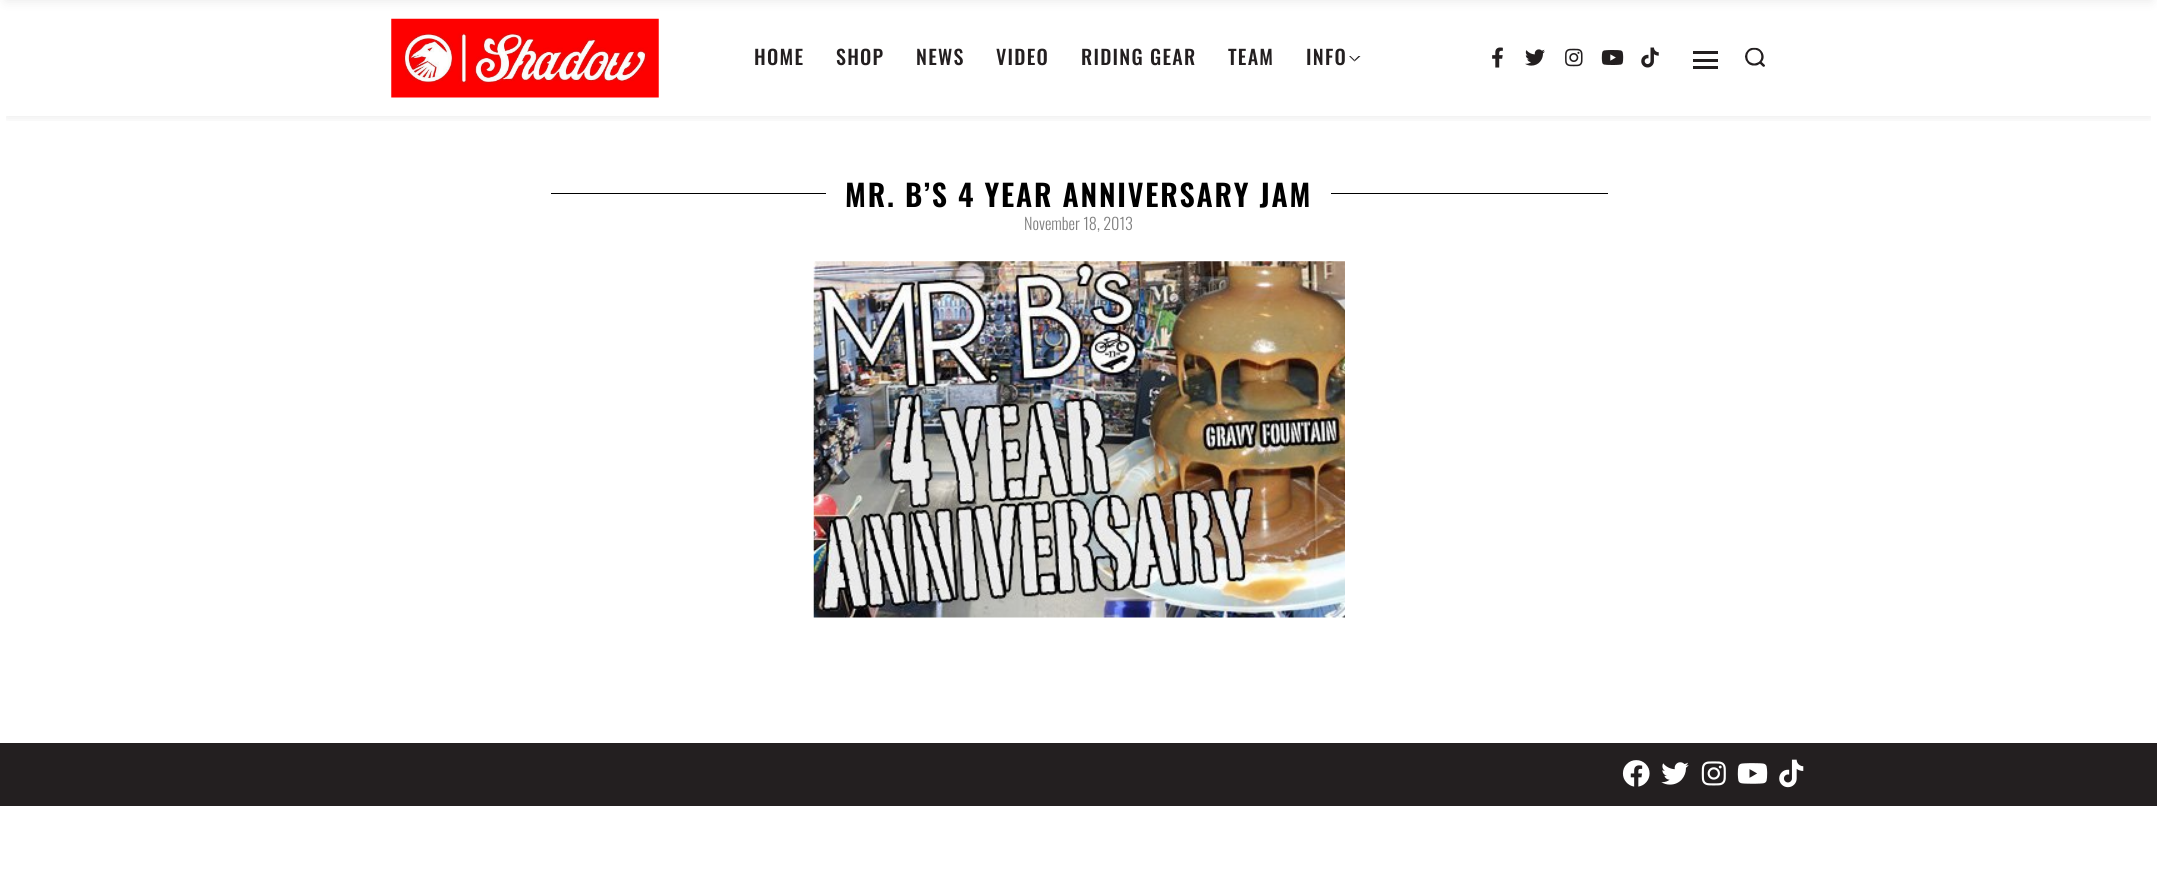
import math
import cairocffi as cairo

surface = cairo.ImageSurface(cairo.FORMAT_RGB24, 2157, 880)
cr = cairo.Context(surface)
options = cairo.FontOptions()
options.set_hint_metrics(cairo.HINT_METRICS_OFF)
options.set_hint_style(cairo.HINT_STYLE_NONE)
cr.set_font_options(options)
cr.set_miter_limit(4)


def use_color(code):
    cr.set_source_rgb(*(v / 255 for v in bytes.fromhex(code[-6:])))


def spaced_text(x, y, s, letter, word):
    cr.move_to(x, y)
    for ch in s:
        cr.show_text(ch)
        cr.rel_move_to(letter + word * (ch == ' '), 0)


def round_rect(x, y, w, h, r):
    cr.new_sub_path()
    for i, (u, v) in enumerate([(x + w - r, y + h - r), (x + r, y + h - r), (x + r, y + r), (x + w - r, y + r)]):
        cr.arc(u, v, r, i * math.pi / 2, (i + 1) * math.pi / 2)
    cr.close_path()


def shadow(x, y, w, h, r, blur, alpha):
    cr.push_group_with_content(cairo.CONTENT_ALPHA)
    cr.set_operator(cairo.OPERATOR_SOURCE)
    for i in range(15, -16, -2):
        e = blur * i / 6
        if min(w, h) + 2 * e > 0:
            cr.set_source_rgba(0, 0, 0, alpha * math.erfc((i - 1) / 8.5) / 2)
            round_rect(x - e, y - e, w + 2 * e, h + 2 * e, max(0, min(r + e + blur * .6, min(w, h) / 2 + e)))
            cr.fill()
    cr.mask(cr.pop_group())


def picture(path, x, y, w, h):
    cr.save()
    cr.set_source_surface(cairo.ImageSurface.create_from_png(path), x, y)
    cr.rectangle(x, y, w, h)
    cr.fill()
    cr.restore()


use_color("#ffffff")
cr.paint()
cr.save()
cr.rectangle(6, 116, 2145, 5)
cr.clip()
use_color("#000000")
shadow(6, 13, 2145, 103, 0, 6, 0.1)
cr.restore()
picture("img1.png", 391, 18, 268, 80)
use_color("#000000")
shadow(6, -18, 2145, 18, 0, 6, 0.1)
cr.select_font_face("Oswald Medium")
cr.set_font_size(20)
use_color("#231f20")
spaced_text(754, 65, "HOME", 1.25, 0)
spaced_text(836, 65, "SHOP", 1.25, 0)
spaced_text(916, 65, "NEWS", 1.25, 0)
spaced_text(996, 65, "VIDEO", 1.25, 0)
spaced_text(1081, 65, "RIDING GEAR", 1.25, 0)
spaced_text(1228, 65, "TEAM", 1.25, 0)
spaced_text(1306, 65, "INFO", 1.25, 0)
cr.new_path()
cr.move_to(1360.5, 56)
cr.line_to(1354.5, 61.5)
cr.line_to(1354.5, 60)
cr.line_to(1358.5, 56)
cr.close_path()
cr.fill()
cr.new_path()
cr.move_to(1354.5, 61.5)
cr.line_to(1349, 56)
cr.line_to(1350.5, 56)
cr.line_to(1354.5, 60)
cr.close_path()
cr.fill()
picture("img2.png", 1492, 47, 11, 21)
picture("img3.png", 1525, 49, 20, 17)
picture("img4.png", 1565, 48, 18, 19)
picture("img5.png", 1601, 50, 23, 15)
picture("img6.png", 1641, 47, 18, 21)
cr.rectangle(1693, 51, 25, 3)
cr.fill()
cr.rectangle(1693, 59, 25, 3)
cr.fill()
cr.rectangle(1693, 66, 25, 3)
cr.fill()
picture("img7.png", 1745, 47, 20, 20)
use_color("#000000")
cr.rectangle(551, 193, 275, 1)
cr.fill()
cr.select_font_face("Oswald SemiBold")
cr.set_font_size(30)
spaced_text(845, 207, "MR. B’S 4 YEAR ANNIVERSARY JAM", 1.8, 0)
cr.rectangle(1331, 193, 277, 1)
cr.fill()
cr.select_font_face("Oswald Light")
cr.set_font_size(16.25)
use_color("#808080")
cr.move_to(1024, 230)
cr.show_text("November 18, 2013")
picture("img8.png", 813, 261, 532, 357)
use_color("#231f20")
cr.rectangle(0, 743, 2157, 63)
cr.fill()
picture("img9.png", 1622, 760, 28, 27)
picture("img10.png", 1661, 762, 28, 23)
picture("img11.png", 1701, 761, 25, 25)
picture("img12.png", 1737, 763, 31, 21)
picture("img13.png", 1779, 759, 25, 29)
surface.write_to_png("result.png")
